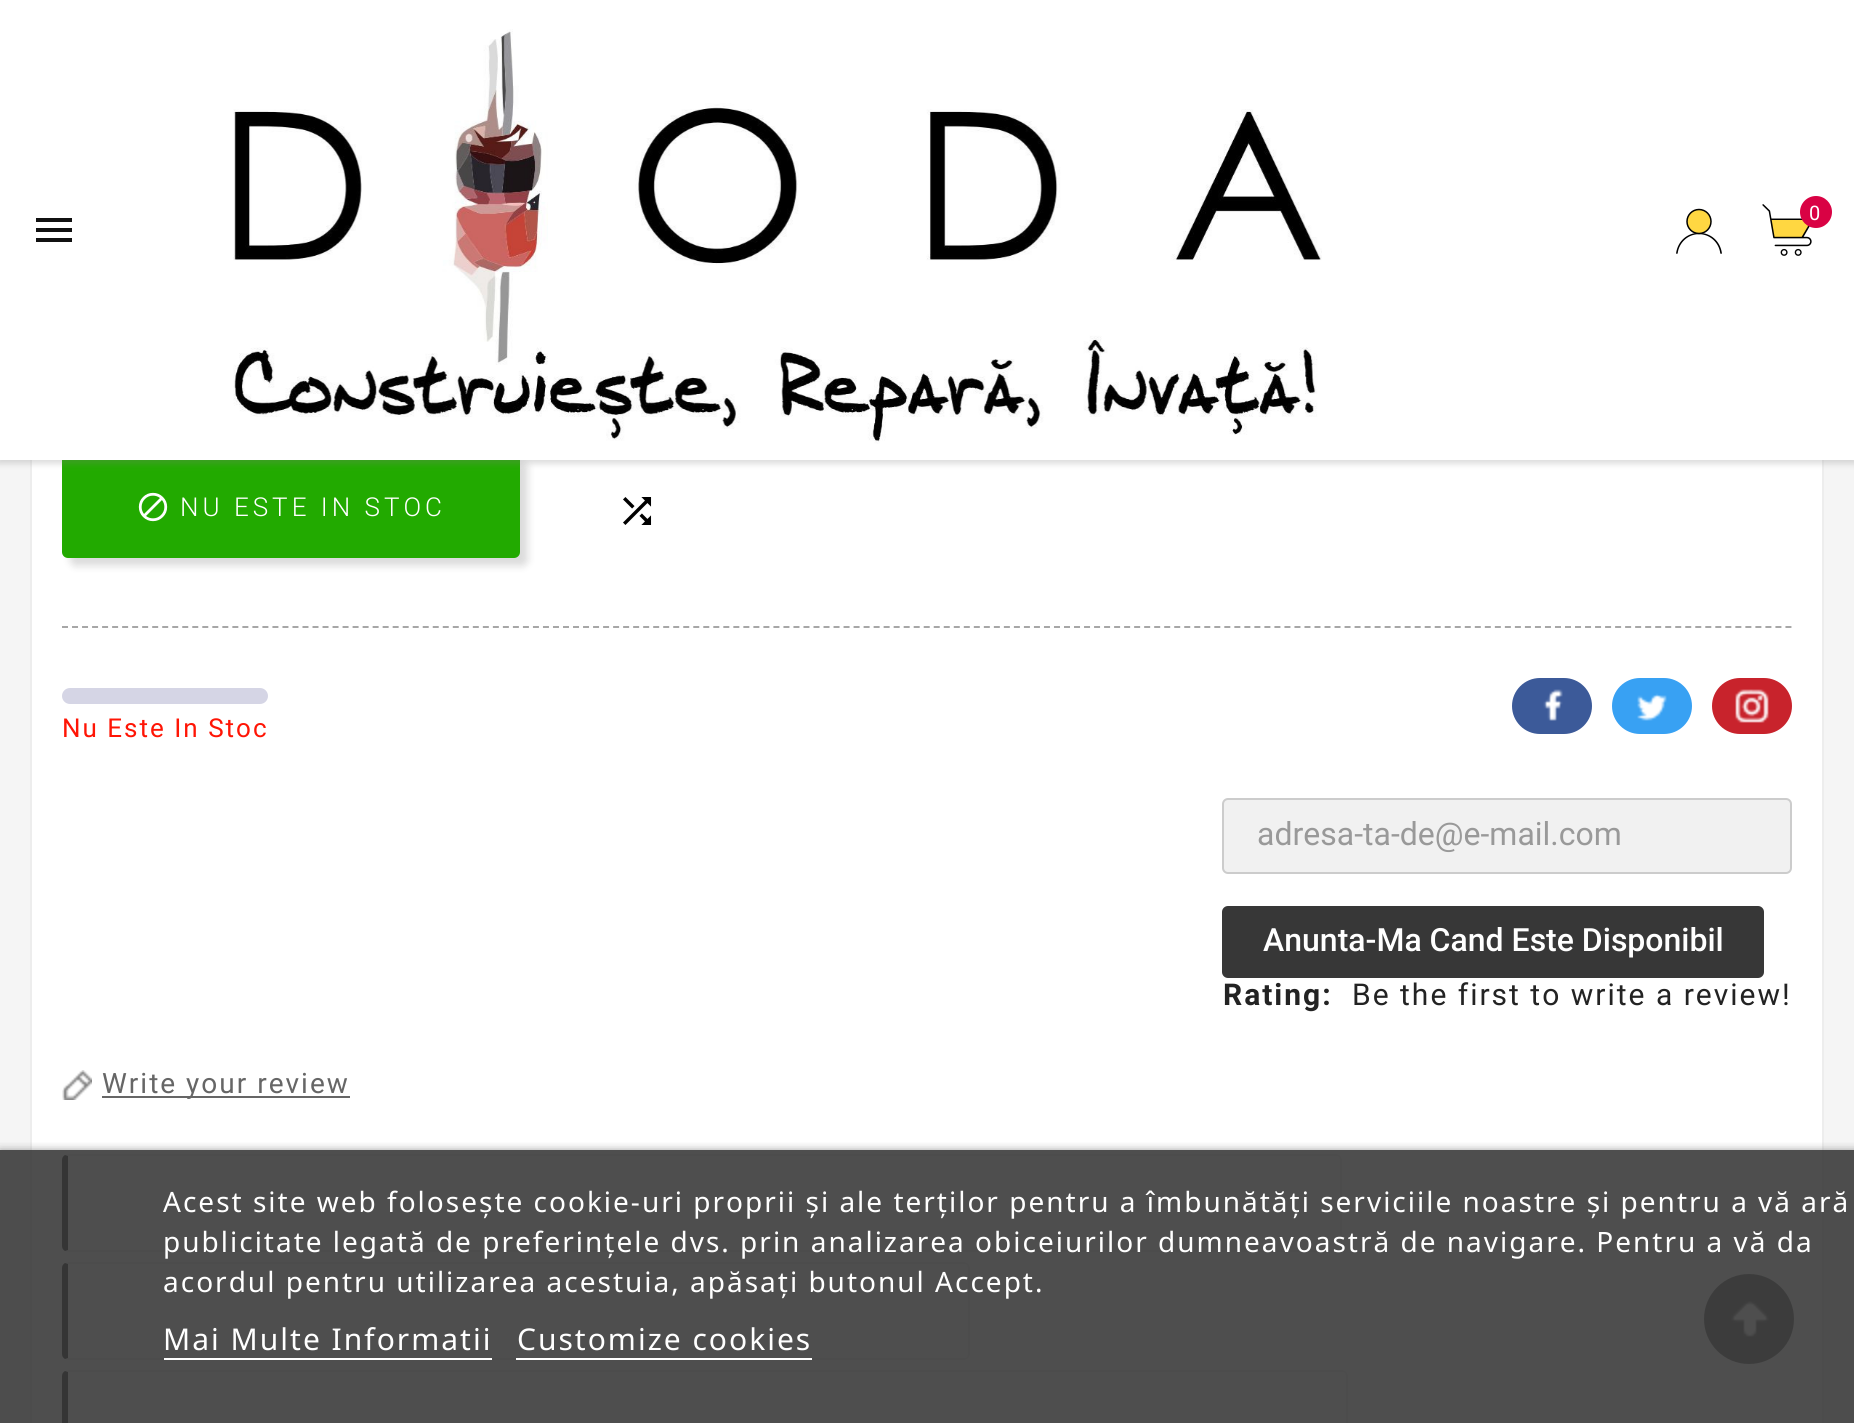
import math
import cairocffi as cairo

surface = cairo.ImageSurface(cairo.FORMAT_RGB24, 1854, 1423)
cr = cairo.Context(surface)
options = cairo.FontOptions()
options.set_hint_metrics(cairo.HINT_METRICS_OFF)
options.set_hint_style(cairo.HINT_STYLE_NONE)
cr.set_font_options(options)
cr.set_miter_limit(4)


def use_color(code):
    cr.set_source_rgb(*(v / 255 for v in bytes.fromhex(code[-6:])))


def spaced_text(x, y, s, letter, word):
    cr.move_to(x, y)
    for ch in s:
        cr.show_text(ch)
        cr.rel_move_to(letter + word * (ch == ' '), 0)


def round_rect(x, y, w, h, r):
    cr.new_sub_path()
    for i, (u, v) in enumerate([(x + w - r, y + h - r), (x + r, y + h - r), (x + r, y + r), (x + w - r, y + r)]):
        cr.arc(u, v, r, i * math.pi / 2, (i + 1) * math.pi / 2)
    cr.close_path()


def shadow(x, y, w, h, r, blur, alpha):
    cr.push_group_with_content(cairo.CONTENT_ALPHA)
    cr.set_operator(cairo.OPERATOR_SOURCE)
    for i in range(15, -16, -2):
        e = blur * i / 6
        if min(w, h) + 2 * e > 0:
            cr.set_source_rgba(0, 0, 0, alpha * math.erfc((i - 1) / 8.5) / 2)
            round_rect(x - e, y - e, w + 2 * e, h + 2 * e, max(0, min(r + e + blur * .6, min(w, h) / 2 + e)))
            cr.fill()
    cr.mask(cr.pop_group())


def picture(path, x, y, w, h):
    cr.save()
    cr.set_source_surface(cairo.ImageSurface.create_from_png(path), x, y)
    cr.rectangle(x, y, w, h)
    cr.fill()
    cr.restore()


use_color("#f5f5f5")
cr.paint()
use_color("#ffffff")
cr.rectangle(32, 460, 1790, 963)
cr.fill()
cr.rectangle(31, -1, 1792, 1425)
use_color("#ededed")
cr.stroke()
use_color("#000000")
shadow(70, 462, 458, 104, 6, 4, 0.14)
use_color("#22aa00")
round_rect(62, 454, 458, 104, 6)
cr.fill()
use_color("#808080")
shadow(-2, 0, 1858, 464, 0, 3, 0.27)
use_color("#ffffff")
cr.rectangle(0, 0, 1854, 460)
cr.fill()
picture("img1.png", 233, 29, 1089, 415)
picture("img2.png", 1676, 208, 46, 46)
picture("img3.png", 1762, 204, 50, 52)
use_color("#d90244")
cr.arc(1816, 212, 16, 0, 2 * math.pi)
cr.fill()
cr.select_font_face("Roboto")
cr.set_font_size(20)
use_color("#ffffff")
spaced_text(1809, 220, "0", 2, 0)
use_color("#111111")
cr.new_path()
cr.move_to(36, 218)
cr.line_to(72, 218)
cr.line_to(72, 222)
cr.line_to(36, 222)
cr.close_path()
cr.move_to(36, 232)
cr.line_to(36, 228)
cr.line_to(72, 228)
cr.line_to(72, 232)
cr.close_path()
cr.move_to(36, 242)
cr.line_to(36, 238)
cr.line_to(72, 238)
cr.line_to(72, 242)
cr.close_path()
cr.fill()
cr.new_path()
cr.move_to(62, 627)
cr.line_to(1792, 627)
use_color("#a7a7a7")
cr.set_dash([6, 4.02])
cr.stroke()
picture("img4.png", 623, 497, 29, 28)
picture("img5.png", 138, 492, 30, 30)
cr.select_font_face("Roboto Light")
cr.set_font_size(26)
use_color("#ffffff")
spaced_text(180, 516, "NU ESTE IN STOC", 4, 0)
use_color("#d5d5e5")
round_rect(62, 688, 206, 16, 8)
cr.fill()
cr.select_font_face("Roboto")
use_color("#ff1505")
spaced_text(62, 737, "Nu Este In Stoc", 2, 0)
use_color("#3c5a99")
round_rect(1512, 678, 80, 56, 28)
cr.fill()
picture("img6.png", 1543, 689, 20, 32)
use_color("#38a1f3")
round_rect(1612, 678, 80, 56, 28)
cr.fill()
picture("img7.png", 1637, 693, 30, 28)
use_color("#c8232c")
round_rect(1712, 678, 80, 56, 28)
cr.fill()
picture("img8.png", 1735, 689, 34, 34)
use_color("#f1f1f1")
round_rect(1223, 799, 568, 74, 5)
cr.fill_preserve()
use_color("#cccccc")
cr.set_dash([])
cr.stroke()
cr.set_font_size(32)
use_color("#999999")
cr.move_to(1257, 845)
cr.show_text("adresa-ta-de@e-mail.com")
use_color("#373737")
round_rect(1222, 906, 542, 72, 6)
cr.fill()
cr.select_font_face("Roboto Medium")
use_color("#ffffff")
cr.move_to(1263, 951)
cr.show_text("Anunta-Ma Cand Este Disponibil")
cr.select_font_face("Roboto", cairo.FONT_SLANT_NORMAL, cairo.FONT_WEIGHT_BOLD)
cr.set_font_size(30)
use_color("#232323")
spaced_text(1223, 1005, "Rating:", 2, 0)
cr.select_font_face("Roboto")
spaced_text(1352, 1005, "Be the first to write a review!", 2, 0)
picture("img9.png", 62, 1070, 30, 30)
use_color("#666666")
cr.rectangle(102, 1096, 248, 2)
cr.fill()
cr.set_font_size(28)
spaced_text(102, 1093, "Write your review", 2, 0)
use_color("#ededed")
cr.new_path()
cr.move_to(68, 1154)
cr.line_to(65, 1155)
cr.line_to(68, 1156)
cr.line_to(1336, 1156)
cr.curve_to(1337, 1156, 1338, 1156, 1339, 1157)
cr.line_to(1340, 1156)
cr.curve_to(1339, 1155, 1338, 1154, 1336, 1154)
cr.close_path()
cr.fill()
cr.set_source_rgba(0, 0, 0, 0.07)
cr.new_path()
cr.move_to(1342, 1246)
cr.line_to(1342, 1159)
cr.line_to(1340, 1156)
cr.line_to(1339, 1157)
cr.line_to(1340, 1160)
cr.line_to(1340, 1246)
cr.line_to(1339, 1249)
cr.line_to(1340, 1250)
cr.curve_to(1341, 1249, 1342, 1248, 1342, 1246)
cr.close_path()
cr.fill()
cr.new_path()
cr.move_to(68, 1252)
cr.line_to(1336, 1252)
cr.curve_to(1338, 1252, 1339, 1251, 1340, 1250)
cr.line_to(1339, 1249)
cr.curve_to(1338, 1250, 1337, 1250, 1336, 1250)
cr.line_to(68, 1250)
cr.line_to(65, 1251)
cr.close_path()
cr.fill()
use_color("#000000")
cr.new_path()
cr.move_to(68, 1156)
cr.line_to(65, 1155)
cr.curve_to(63, 1156, 62, 1158, 62, 1160)
cr.line_to(62, 1246)
cr.curve_to(62, 1248, 63, 1250, 65, 1251)
cr.line_to(68, 1250)
cr.close_path()
cr.fill()
use_color("#ededed")
cr.new_path()
cr.move_to(68, 1262)
cr.line_to(65, 1263)
cr.line_to(68, 1264)
cr.line_to(964, 1264)
cr.curve_to(965, 1264, 966, 1264, 967, 1265)
cr.line_to(968, 1264)
cr.curve_to(967, 1263, 966, 1262, 964, 1262)
cr.close_path()
cr.fill()
cr.set_source_rgba(0, 0, 0, 0.07)
cr.new_path()
cr.move_to(970, 1354)
cr.line_to(970, 1267)
cr.line_to(968, 1264)
cr.line_to(967, 1265)
cr.line_to(968, 1268)
cr.line_to(968, 1354)
cr.line_to(967, 1357)
cr.line_to(968, 1358)
cr.curve_to(969, 1357, 970, 1356, 970, 1354)
cr.close_path()
cr.fill()
cr.new_path()
cr.move_to(68, 1360)
cr.line_to(964, 1360)
cr.curve_to(966, 1360, 967, 1359, 968, 1358)
cr.line_to(967, 1357)
cr.curve_to(966, 1358, 965, 1358, 964, 1358)
cr.line_to(68, 1358)
cr.line_to(65, 1359)
cr.close_path()
cr.fill()
use_color("#000000")
cr.new_path()
cr.move_to(68, 1264)
cr.line_to(65, 1263)
cr.curve_to(63, 1264, 62, 1266, 62, 1268)
cr.line_to(62, 1354)
cr.curve_to(62, 1356, 63, 1358, 65, 1359)
cr.line_to(68, 1358)
cr.close_path()
cr.fill()
use_color("#ededed")
cr.new_path()
cr.move_to(68, 1370)
cr.line_to(65, 1371)
cr.line_to(68, 1372)
cr.line_to(1342, 1372)
cr.curve_to(1343, 1372, 1344, 1372, 1345, 1373)
cr.line_to(1346, 1372)
cr.curve_to(1345, 1371, 1344, 1370, 1342, 1370)
cr.close_path()
cr.fill()
cr.set_source_rgba(0, 0, 0, 0.07)
cr.new_path()
cr.move_to(1348, 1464)
cr.line_to(1348, 1375)
cr.line_to(1346, 1372)
cr.line_to(1345, 1373)
cr.line_to(1346, 1376)
cr.line_to(1346, 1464)
cr.line_to(1345, 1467)
cr.line_to(1346, 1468)
cr.curve_to(1347, 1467, 1348, 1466, 1348, 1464)
cr.close_path()
cr.fill()
use_color("#000000")
cr.new_path()
cr.move_to(68, 1372)
cr.line_to(65, 1371)
cr.curve_to(63, 1372, 62, 1374, 62, 1376)
cr.line_to(62, 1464)
cr.curve_to(62, 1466, 63, 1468, 65, 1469)
cr.line_to(68, 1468)
cr.close_path()
cr.fill()
use_color("#4c4c4c")
cr.arc(1749, 1319, 45, 0, 2 * math.pi)
cr.fill()
picture("img10.png", 1731, 1301, 38, 36)
cr.save()
cr.rectangle(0, 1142, 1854, 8)
cr.clip()
use_color("#707070")
shadow(0, 1152, 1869, 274, 0, 5, 1)
cr.restore()
cr.set_source_rgba(0.231, 0.231, 0.231, 0.9)
cr.rectangle(0, 1150, 1854, 273)
cr.fill()
cr.select_font_face("Noto Sans")
use_color("#ffffff")
spaced_text(163, 1212, "Acest site web folosește cookie-uri proprii și ale terților pentru a îmbunătăți serviciile noastre și pentru a vă ară", 2, 0)
spaced_text(163, 1252, "publicitate legată de preferințele dvs. prin analizarea obiceiurilor dumneavoastră de navigare. Pentru a vă da", 2, 0)
spaced_text(163, 1292, "acordul pentru utilizarea acestuia, apăsați butonul Accept.", 2, 0)
cr.set_font_size(30)
spaced_text(163, 1350, "Mai Multe Informatii", 2, 0)
cr.rectangle(164, 1358, 328, 2)
cr.fill()
spaced_text(517, 1350, "Customize cookies", 2, 0)
cr.rectangle(516, 1358, 296, 2)
cr.fill()
surface.write_to_png("result.png")
